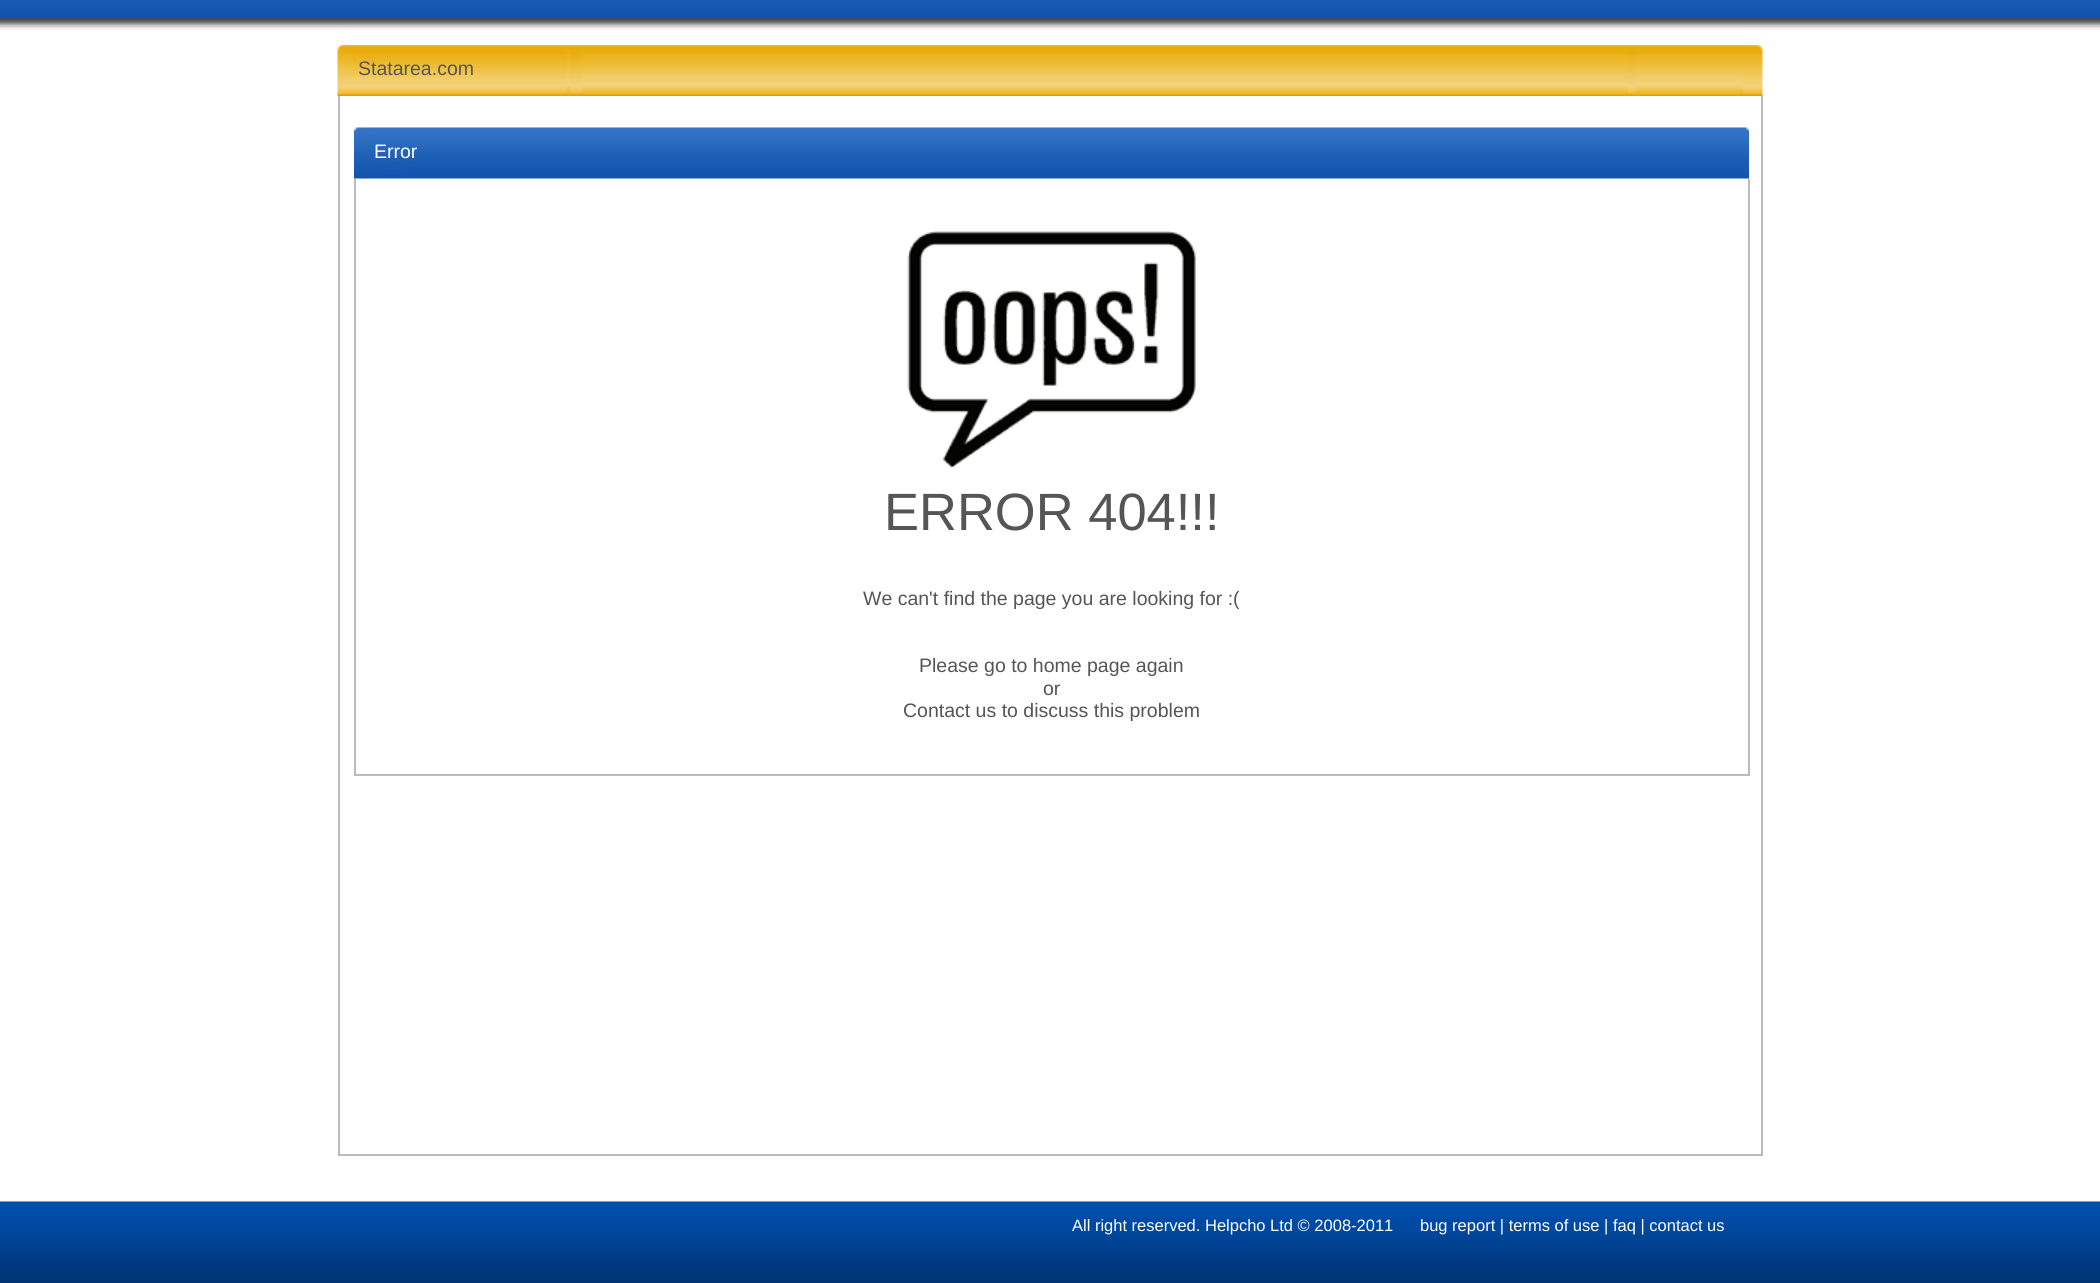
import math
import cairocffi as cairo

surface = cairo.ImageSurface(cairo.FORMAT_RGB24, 2100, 1283)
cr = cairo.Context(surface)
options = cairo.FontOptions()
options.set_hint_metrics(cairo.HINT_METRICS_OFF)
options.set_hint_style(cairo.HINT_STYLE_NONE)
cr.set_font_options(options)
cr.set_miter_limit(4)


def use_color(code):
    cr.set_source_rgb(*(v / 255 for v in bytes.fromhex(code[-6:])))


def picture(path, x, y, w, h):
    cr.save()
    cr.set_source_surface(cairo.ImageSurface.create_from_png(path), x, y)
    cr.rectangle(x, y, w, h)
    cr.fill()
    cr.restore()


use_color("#ffffff")
cr.paint()
picture("img1.png", 0, 0, 2100, 30)
picture("img2.png", 337, 45, 1426, 51)
cr.select_font_face("Liberation Sans")
cr.set_font_size(19.5)
use_color("#555555")
cr.move_to(358, 75)
cr.show_text("Statarea.com")
use_color("#bbbbbb")
cr.rectangle(1761, 96, 2, 1059)
cr.fill()
cr.rectangle(338, 1154, 1425, 2)
cr.fill()
cr.rectangle(338, 96, 2, 1059)
cr.fill()
picture("img3.png", 354, 127, 1395, 52)
use_color("#ffffff")
cr.move_to(374, 158)
cr.show_text("Error")
use_color("#bbbbbb")
cr.rectangle(1748, 179, 2, 597)
cr.fill()
cr.rectangle(354, 774, 1395, 2)
cr.fill()
cr.rectangle(354, 179, 2, 597)
cr.fill()
picture("img4.png", 907, 231, 289, 238)
cr.set_font_size(52.5)
use_color("#555555")
cr.move_to(884, 530)
cr.show_text("ERROR 404!!!")
cr.set_font_size(19.5)
cr.move_to(863, 605)
cr.show_text("We can't find the page you are looking for :(")
cr.move_to(919, 672)
cr.show_text("Please go to home page again")
cr.move_to(1043, 695)
cr.show_text("or")
cr.move_to(903, 717)
cr.show_text("Contact us to discuss this problem")
picture("img5.png", 0, 1201, 2100, 82)
cr.set_font_size(16.5)
use_color("#ffffff")
cr.move_to(1072, 1231)
cr.show_text("All right reserved. Helpcho Ltd © 2008-2011")
cr.move_to(1420, 1231)
cr.show_text("bug report | terms of use | faq | contact us")
surface.write_to_png("result.png")
